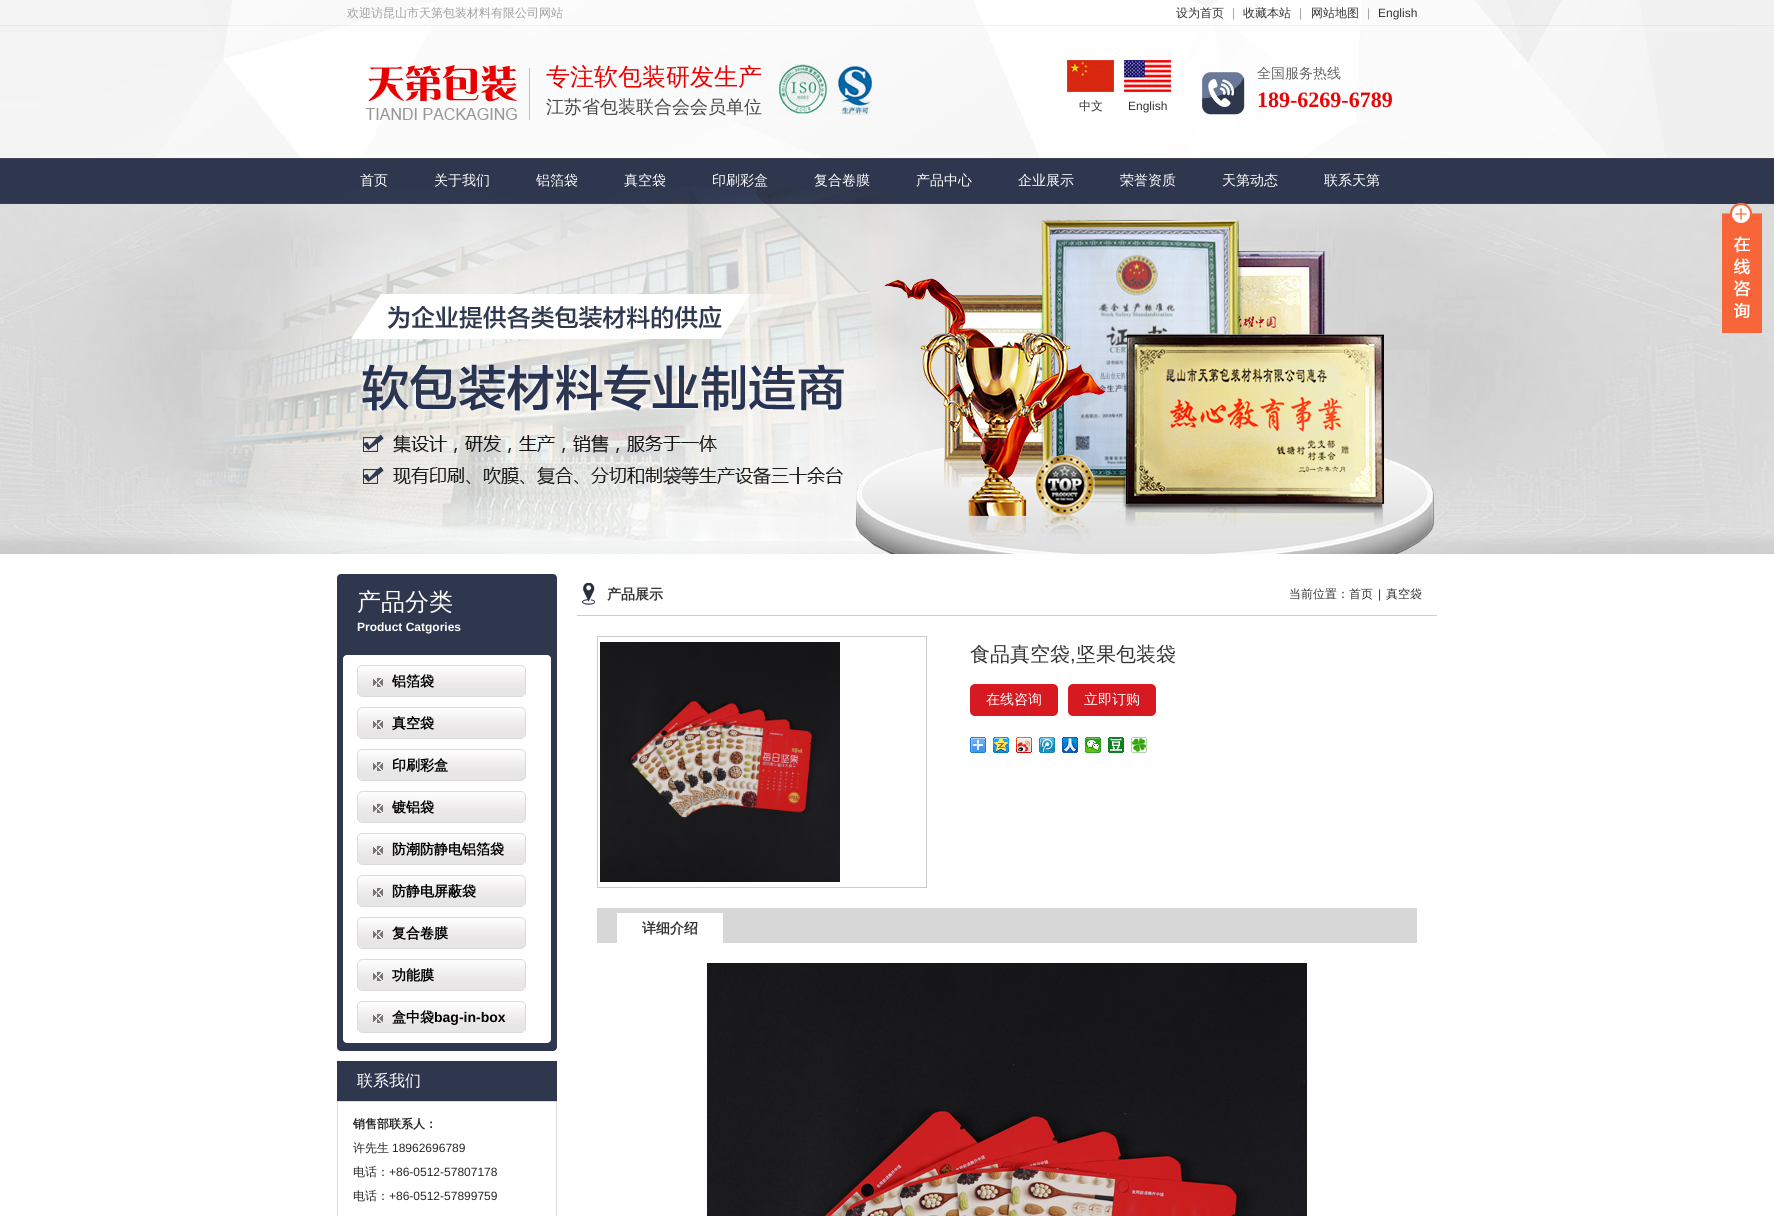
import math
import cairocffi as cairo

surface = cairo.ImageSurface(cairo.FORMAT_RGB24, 1774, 1216)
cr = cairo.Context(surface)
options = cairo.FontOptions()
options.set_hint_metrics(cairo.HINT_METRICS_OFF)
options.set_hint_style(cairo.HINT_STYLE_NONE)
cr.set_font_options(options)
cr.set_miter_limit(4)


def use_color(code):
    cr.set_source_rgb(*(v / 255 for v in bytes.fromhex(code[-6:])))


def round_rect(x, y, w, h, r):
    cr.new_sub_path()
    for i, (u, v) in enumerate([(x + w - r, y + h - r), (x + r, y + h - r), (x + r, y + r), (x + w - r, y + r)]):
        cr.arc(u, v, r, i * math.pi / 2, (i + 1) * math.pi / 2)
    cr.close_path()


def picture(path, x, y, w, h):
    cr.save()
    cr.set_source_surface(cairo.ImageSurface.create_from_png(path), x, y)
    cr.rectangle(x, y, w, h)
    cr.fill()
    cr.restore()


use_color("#ffffff")
cr.paint()
picture("img1.png", 0, 0, 1774, 204)
cr.select_font_face("WenQuanYi Zen Hei Medium")
cr.set_font_size(12)
use_color("#a1a1a1")
cr.move_to(347, 17)
cr.show_text("欢迎访昆山市天第包装材料有限公司网站")
use_color("#333333")
cr.move_to(1176, 17)
cr.show_text("设为首页")
cr.select_font_face("Liberation Sans")
use_color("#a1a1a1")
cr.move_to(1232, 17)
cr.show_text("|")
cr.select_font_face("WenQuanYi Zen Hei Medium")
use_color("#333333")
cr.move_to(1243, 17)
cr.show_text("收藏本站")
cr.select_font_face("Liberation Sans")
use_color("#a1a1a1")
cr.move_to(1299, 17)
cr.show_text("|")
cr.select_font_face("WenQuanYi Zen Hei Medium")
use_color("#333333")
cr.move_to(1311, 17)
cr.show_text("网站地图")
cr.select_font_face("Liberation Sans")
use_color("#a1a1a1")
cr.move_to(1367, 17)
cr.show_text("|")
use_color("#333333")
cr.move_to(1378, 17)
cr.show_text("English")
picture("img2.png", 347, 26, 183, 132)
cr.select_font_face("WenQuanYi Zen Hei Medium")
cr.set_font_size(24)
use_color("#e90001")
cr.move_to(546, 85)
cr.show_text("专注软包装研发生产")
cr.set_font_size(18)
use_color("#484848")
cr.move_to(546, 113)
cr.show_text("江苏省包装联合会会员单位")
picture("img3.png", 777, 62, 97, 54)
picture("img4.png", 1067, 60, 47, 32)
cr.set_font_size(12)
use_color("#333333")
cr.move_to(1079, 110)
cr.show_text("中文")
picture("img5.png", 1124, 60, 47, 32)
cr.select_font_face("Liberation Sans")
cr.move_to(1128, 110)
cr.show_text("English")
picture("img6.png", 1202, 72, 43, 43)
cr.select_font_face("WenQuanYi Zen Hei Medium")
cr.set_font_size(14)
use_color("#666666")
cr.move_to(1257, 78)
cr.show_text("全国服务热线")
cr.select_font_face("Liberation Serif", cairo.FONT_SLANT_NORMAL, cairo.FONT_WEIGHT_BOLD)
cr.set_font_size(22)
use_color("#e60708")
cr.move_to(1257, 107)
cr.show_text("189-6269-6789")
cr.select_font_face("WenQuanYi Zen Hei Medium")
cr.set_font_size(14)
use_color("#ffffff")
cr.move_to(360, 185)
cr.show_text("首页")
cr.move_to(434, 185)
cr.show_text("关于我们")
cr.move_to(536, 185)
cr.show_text("铝箔袋")
cr.move_to(624, 185)
cr.show_text("真空袋")
cr.move_to(712, 185)
cr.show_text("印刷彩盒")
cr.move_to(814, 185)
cr.show_text("复合卷膜")
cr.move_to(916, 185)
cr.show_text("产品中心")
cr.move_to(1018, 185)
cr.show_text("企业展示")
cr.move_to(1120, 185)
cr.show_text("荣誉资质")
cr.move_to(1222, 185)
cr.show_text("天第动态")
cr.move_to(1324, 185)
cr.show_text("联系天第")
picture("img8.png", 0, 204, 1774, 350)
picture("img7.png", 1722, 202, 40, 131)
use_color("#2f374e")
round_rect(337, 574, 220, 477, 4)
cr.fill()
cr.set_font_size(24)
use_color("#ffffff")
cr.move_to(357, 610)
cr.show_text("产品分类")
cr.select_font_face("Liberation Sans", cairo.FONT_SLANT_NORMAL, cairo.FONT_WEIGHT_BOLD)
cr.set_font_size(12)
cr.move_to(357, 631)
cr.show_text("Product Catgories")
round_rect(343, 655, 208, 388, 4)
cr.fill()
picture("img9.png", 357, 665, 169, 32)
picture("img10.png", 373, 678, 10, 9)
cr.select_font_face("WenQuanYi Zen Hei", cairo.FONT_SLANT_NORMAL, cairo.FONT_WEIGHT_BOLD)
cr.set_font_size(14)
use_color("#000000")
cr.move_to(392, 686)
cr.show_text("铝箔袋")
picture("img9.png", 357, 707, 169, 32)
picture("img10.png", 373, 720, 10, 9)
cr.move_to(392, 728)
cr.show_text("真空袋")
picture("img9.png", 357, 749, 169, 32)
picture("img10.png", 373, 762, 10, 9)
cr.move_to(392, 770)
cr.show_text("印刷彩盒")
picture("img9.png", 357, 791, 169, 32)
picture("img10.png", 373, 804, 10, 9)
cr.move_to(392, 812)
cr.show_text("镀铝袋")
picture("img9.png", 357, 833, 169, 32)
picture("img10.png", 373, 846, 10, 9)
cr.move_to(392, 854)
cr.show_text("防潮防静电铝箔袋")
picture("img9.png", 357, 875, 169, 32)
picture("img10.png", 373, 888, 10, 9)
cr.move_to(392, 896)
cr.show_text("防静电屏蔽袋")
picture("img9.png", 357, 917, 169, 32)
picture("img10.png", 373, 930, 10, 9)
cr.move_to(392, 938)
cr.show_text("复合卷膜")
picture("img9.png", 357, 959, 169, 32)
picture("img10.png", 373, 972, 10, 9)
cr.move_to(392, 980)
cr.show_text("功能膜")
picture("img9.png", 357, 1001, 169, 32)
picture("img10.png", 373, 1014, 10, 9)
cr.move_to(392, 1022)
cr.show_text("盒中袋")
cr.select_font_face("Liberation Sans", cairo.FONT_SLANT_NORMAL, cairo.FONT_WEIGHT_BOLD)
cr.move_to(434, 1022)
cr.show_text("bag-in-box")
use_color("#2f374e")
cr.rectangle(337, 1061, 220, 40)
cr.fill()
cr.select_font_face("WenQuanYi Zen Hei Medium")
cr.set_font_size(16)
use_color("#ffffff")
cr.move_to(357, 1086)
cr.show_text("联系我们")
cr.rectangle(337.5, 1101.5, 219, 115)
use_color("#dcdcdc")
cr.set_line_width(1)
cr.stroke()
cr.select_font_face("WenQuanYi Zen Hei", cairo.FONT_SLANT_NORMAL, cairo.FONT_WEIGHT_BOLD)
cr.set_font_size(12)
use_color("#262626")
cr.move_to(353, 1128)
cr.show_text("销售部联系人：")
cr.select_font_face("WenQuanYi Zen Hei Medium")
cr.move_to(353, 1152)
cr.show_text("许先生")
cr.select_font_face("Liberation Sans")
cr.move_to(392, 1152)
cr.show_text("18962696789")
cr.select_font_face("WenQuanYi Zen Hei Medium")
cr.move_to(353, 1176)
cr.show_text("电话：")
cr.select_font_face("Liberation Sans")
cr.move_to(389, 1176)
cr.show_text("+86-0512-57807178")
cr.select_font_face("WenQuanYi Zen Hei Medium")
cr.move_to(353, 1200)
cr.show_text("电话：")
cr.select_font_face("Liberation Sans")
cr.move_to(389, 1200)
cr.show_text("+86-0512-57899759")
use_color("#cccccc")
cr.rectangle(577, 615, 860, 1)
cr.fill()
picture("img11.png", 582, 583, 13, 22)
cr.select_font_face("WenQuanYi Zen Hei", cairo.FONT_SLANT_NORMAL, cairo.FONT_WEIGHT_BOLD)
cr.set_font_size(14)
use_color("#333333")
cr.move_to(607, 599)
cr.show_text("产品展示")
cr.select_font_face("WenQuanYi Zen Hei Medium")
cr.set_font_size(12)
cr.move_to(1289, 598)
cr.show_text("当前位置：首页")
cr.select_font_face("Liberation Sans")
cr.move_to(1378, 598)
cr.show_text("|")
cr.select_font_face("WenQuanYi Zen Hei Medium")
cr.move_to(1386, 598)
cr.show_text("真空袋")
use_color("#cccccc")
cr.rectangle(597, 636, 330, 1)
cr.fill()
cr.rectangle(926, 636, 1, 252)
cr.fill()
cr.rectangle(597, 887, 330, 1)
cr.fill()
cr.rectangle(597, 636, 1, 252)
cr.fill()
picture("img12.png", 600, 642, 240, 240)
cr.set_font_size(20)
use_color("#333333")
cr.move_to(970, 661)
cr.show_text("食品真空袋")
cr.select_font_face("Liberation Sans")
cr.move_to(1070, 661)
cr.show_text(",")
cr.select_font_face("WenQuanYi Zen Hei Medium")
cr.move_to(1076, 661)
cr.show_text("坚果包装袋")
use_color("#d71a21")
round_rect(970, 684, 88, 32, 5)
cr.fill()
cr.set_font_size(14)
use_color("#ffffff")
cr.move_to(986, 704)
cr.show_text("在线咨询")
use_color("#d71a21")
round_rect(1068, 684, 88, 32, 5)
cr.fill()
use_color("#ffffff")
cr.move_to(1084, 704)
cr.show_text("立即订购")
picture("img13.png", 970, 737, 16, 16)
picture("img14.png", 993, 737, 16, 16)
picture("img15.png", 1016, 737, 16, 16)
picture("img16.png", 1039, 737, 16, 16)
picture("img17.png", 1062, 737, 16, 16)
picture("img18.png", 1085, 737, 16, 16)
picture("img19.png", 1108, 737, 16, 16)
picture("img20.png", 1131, 737, 16, 16)
use_color("#d7d7d7")
cr.rectangle(597, 908, 820, 35)
cr.fill()
use_color("#ffffff")
cr.rectangle(617, 913, 106, 30)
cr.fill()
cr.select_font_face("WenQuanYi Zen Hei", cairo.FONT_SLANT_NORMAL, cairo.FONT_WEIGHT_BOLD)
use_color("#333333")
cr.move_to(642, 933)
cr.show_text("详细介绍")
picture("img21.png", 707, 963, 600, 253)
surface.write_to_png("result.png")
